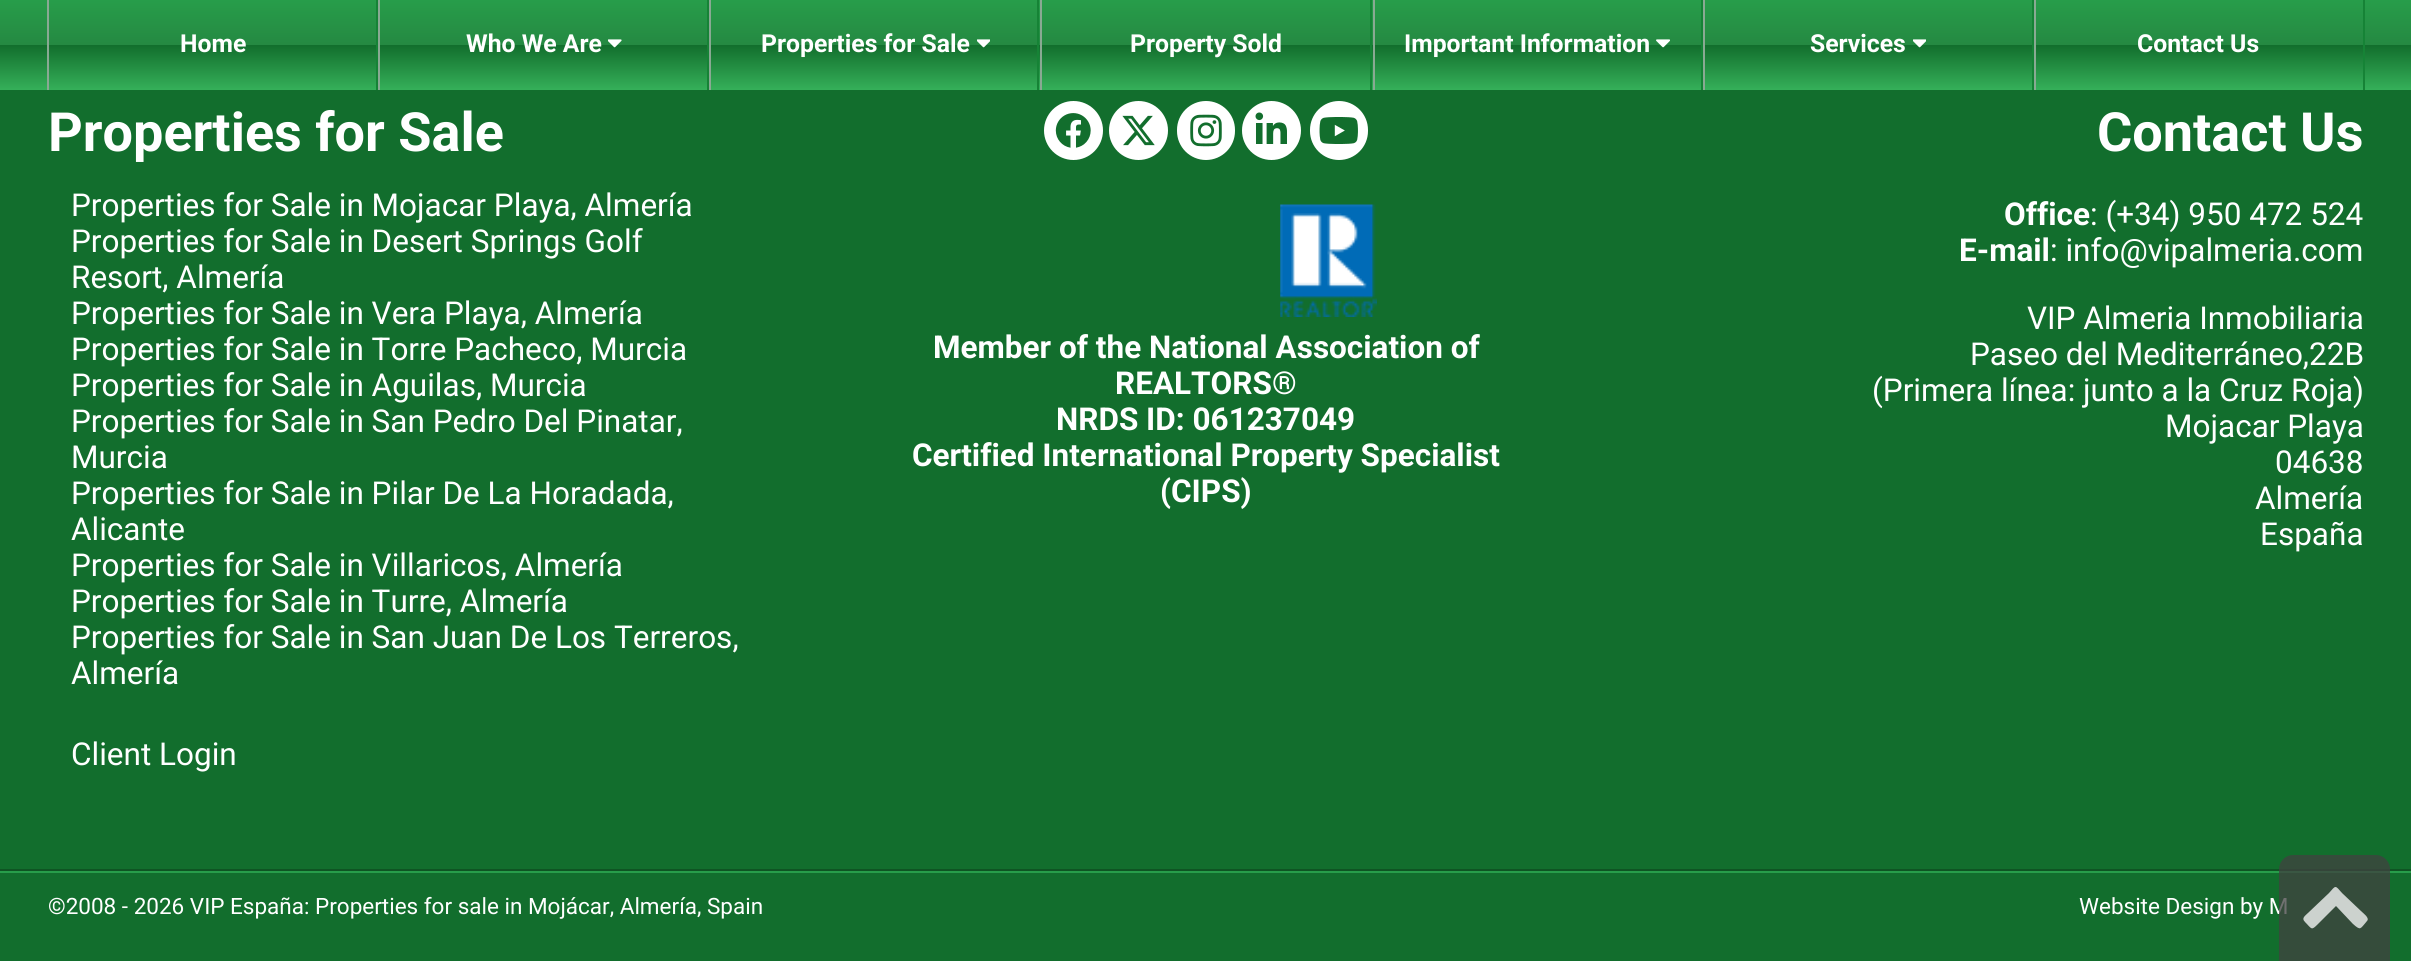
import math
import cairocffi as cairo

surface = cairo.ImageSurface(cairo.FORMAT_RGB24, 2411, 961)
cr = cairo.Context(surface)
options = cairo.FontOptions()
options.set_hint_metrics(cairo.HINT_METRICS_OFF)
options.set_hint_style(cairo.HINT_STYLE_NONE)
cr.set_font_options(options)
cr.set_miter_limit(4)


def use_color(code):
    cr.set_source_rgb(*(v / 255 for v in bytes.fromhex(code[-6:])))


def round_rect(x, y, w, h, r):
    cr.new_sub_path()
    for i, (u, v) in enumerate([(x + w - r, y + h - r), (x + r, y + h - r), (x + r, y + r), (x + w - r, y + r)]):
        cr.arc(u, v, r, i * math.pi / 2, (i + 1) * math.pi / 2)
    cr.close_path()


def picture(path, x, y, w, h):
    cr.save()
    cr.set_source_surface(cairo.ImageSurface.create_from_png(path), x, y)
    cr.rectangle(x, y, w, h)
    cr.fill()
    cr.restore()


use_color("#126e2d")
cr.paint()
gradient = cairo.LinearGradient(1206, 0, 1206, 90)
gradient.add_color_stop_rgba(0, 0.153, 0.616, 0.29, 1)
gradient.add_color_stop_rgba(0.5, 0.145, 0.537, 0.259, 1)
gradient.add_color_stop_rgba(0.5, 0.071, 0.431, 0.176, 1)
gradient.add_color_stop_rgba(1, 0.208, 0.69, 0.349, 1)
cr.set_source(gradient)
cr.rectangle(0, 0, 2411, 90)
cr.fill()
use_color("#168336")
cr.rectangle(376, 0, 2, 90)
cr.fill()
use_color("#89a993")
cr.rectangle(47, 0, 2, 90)
cr.fill()
cr.select_font_face("Roboto", cairo.FONT_SLANT_NORMAL, cairo.FONT_WEIGHT_BOLD)
cr.set_font_size(24.75)
use_color("#ffffff")
cr.move_to(180, 52)
cr.show_text("Home")
use_color("#168336")
cr.rectangle(707, 0, 2, 90)
cr.fill()
use_color("#89a993")
cr.rectangle(378, 0, 2, 90)
cr.fill()
use_color("#ffffff")
cr.move_to(466, 52)
cr.show_text("Who We Are")
picture("img1.png", 608, 39, 14, 9)
use_color("#168336")
cr.rectangle(1037, 0, 2, 90)
cr.fill()
use_color("#89a993")
cr.rectangle(709, 0, 2, 90)
cr.fill()
use_color("#ffffff")
cr.move_to(761, 52)
cr.show_text("Properties for Sale")
picture("img2.png", 977, 39, 13, 9)
use_color("#168336")
cr.rectangle(1370, 0, 2, 90)
cr.fill()
use_color("#89a993")
cr.rectangle(1040, 0, 2, 90)
cr.fill()
use_color("#ffffff")
cr.move_to(1130, 52)
cr.show_text("Property Sold")
use_color("#168336")
cr.rectangle(1701, 0, 2, 90)
cr.fill()
use_color("#89a993")
cr.rectangle(1373, 0, 2, 90)
cr.fill()
use_color("#ffffff")
cr.move_to(1404, 52)
cr.show_text("Important Information")
picture("img3.png", 1656, 39, 14, 9)
use_color("#168336")
cr.rectangle(2032, 0, 2, 90)
cr.fill()
use_color("#89a993")
cr.rectangle(1703, 0, 2, 90)
cr.fill()
use_color("#ffffff")
cr.move_to(1810, 52)
cr.show_text("Services")
picture("img2.png", 1913, 39, 13, 9)
use_color("#168336")
cr.rectangle(2363, 0, 2, 90)
cr.fill()
use_color("#89a993")
cr.rectangle(2034, 0, 2, 90)
cr.fill()
use_color("#ffffff")
cr.move_to(2137, 52)
cr.show_text("Contact Us")
use_color("#0f5423")
cr.rectangle(0, 869, 2411, 2)
cr.fill()
cr.set_font_size(54)
use_color("#ffffff")
cr.move_to(48, 151)
cr.show_text("Properties for Sale")
cr.select_font_face("Roboto")
cr.set_font_size(31.5)
cr.move_to(71, 216)
cr.show_text("Properties for Sale in Mojacar Playa, Almería")
cr.move_to(71, 252)
cr.show_text("Properties for Sale in Desert Springs Golf")
cr.move_to(71, 288)
cr.show_text("Resort, Almería")
cr.move_to(71, 324)
cr.show_text("Properties for Sale in Vera Playa, Almería")
cr.move_to(71, 360)
cr.show_text("Properties for Sale in Torre Pacheco, Murcia")
cr.move_to(71, 396)
cr.show_text("Properties for Sale in Aguilas, Murcia")
cr.move_to(71, 432)
cr.show_text("Properties for Sale in San Pedro Del Pinatar,")
cr.move_to(71, 468)
cr.show_text("Murcia")
cr.move_to(71, 504)
cr.show_text("Properties for Sale in Pilar De La Horadada,")
cr.move_to(71, 540)
cr.show_text("Alicante")
cr.move_to(71, 576)
cr.show_text("Properties for Sale in Villaricos, Almería")
cr.move_to(71, 612)
cr.show_text("Properties for Sale in Turre, Almería")
cr.move_to(71, 648)
cr.show_text("Properties for Sale in San Juan De Los Terreros,")
cr.move_to(71, 684)
cr.show_text("Almería")
cr.move_to(71, 765)
cr.show_text("Client Login")
cr.new_path()
cr.arc(1073.5, 130.5, 29.5, 0, 2 * math.pi)
cr.fill()
picture("img4.png", 1055, 113, 36, 35)
cr.arc(1138.5, 130.5, 29.5, 0, 2 * math.pi)
cr.fill()
picture("img5.png", 1122, 115, 33, 31)
round_rect(1177, 101, 58, 59, 29)
cr.fill()
picture("img6.png", 1190, 114, 32, 33)
cr.arc(1271.5, 130.5, 29.5, 0, 2 * math.pi)
cr.fill()
picture("img7.png", 1255, 112, 32, 32)
round_rect(1310, 101, 58, 59, 29)
cr.fill()
picture("img8.png", 1319, 117, 39, 27)
picture("img9.png", 1280, 204, 97, 113)
cr.select_font_face("Roboto", cairo.FONT_SLANT_NORMAL, cairo.FONT_WEIGHT_BOLD)
cr.move_to(933, 358)
cr.show_text("Member of the National Association of")
cr.move_to(1115, 394)
cr.show_text("REALTORS®")
cr.move_to(1056, 430)
cr.show_text("NRDS ID: 061237049")
cr.move_to(912, 466)
cr.show_text("Certified International Property Specialist")
cr.move_to(1160, 502)
cr.show_text("(CIPS)")
cr.set_font_size(54)
cr.move_to(2097, 151)
cr.show_text("Contact Us")
cr.set_font_size(31.5)
cr.move_to(2004, 225)
cr.show_text("Office")
cr.select_font_face("Roboto")
cr.move_to(2090, 225)
cr.show_text(": (+34) 950 472 524")
cr.select_font_face("Roboto", cairo.FONT_SLANT_NORMAL, cairo.FONT_WEIGHT_BOLD)
cr.move_to(1959, 261)
cr.show_text("E-mail")
cr.select_font_face("Roboto")
cr.move_to(2050, 261)
cr.show_text(": info@vipalmeria.com")
cr.move_to(2027, 329)
cr.show_text("VIP Almeria Inmobiliaria")
cr.move_to(1970, 365)
cr.show_text("Paseo del Mediterráneo,22B")
cr.move_to(1872, 401)
cr.show_text("(Primera línea: junto a la Cruz Roja)")
cr.move_to(2165, 437)
cr.show_text("Mojacar Playa")
cr.move_to(2275, 473)
cr.show_text("04638")
cr.move_to(2255, 509)
cr.show_text("Almería")
cr.move_to(2260, 545)
cr.show_text("España")
use_color("#279d4a")
cr.rectangle(0, 871, 2411, 2)
cr.fill()
cr.set_font_size(22.5)
use_color("#ffffff")
cr.move_to(48, 914)
cr.show_text("©2008 - 2026 VIP España: Properties for sale in Mojácar, Almería, Spain")
cr.move_to(2079, 914)
cr.show_text("Website Design by M")
cr.set_source_rgba(0.251, 0.251, 0.251, 0.75)
cr.new_path()
cr.move_to(2293, 855)
cr.line_to(2376, 855)
cr.curve_to(2383.5, 855, 2390, 861.5, 2390, 869)
cr.line_to(2390, 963)
cr.line_to(2279, 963)
cr.line_to(2279, 869)
cr.curve_to(2279, 861.5, 2285.5, 855, 2293, 855)
cr.close_path()
cr.fill()
cr.set_source_rgba(1, 1, 1, 0.75)
cr.new_path()
cr.move_to(2367, 921)
cr.curve_to(2360, 929, 2361, 931, 2353, 924)
cr.line_to(2336, 906)
cr.line_to(2318, 924)
cr.curve_to(2311, 931, 2312, 929, 2305, 922)
cr.curve_to(2301, 918, 2305, 916, 2309, 912)
cr.line_to(2329, 893)
cr.curve_to(2336, 885, 2335, 885, 2342, 893)
cr.line_to(2362, 912)
cr.curve_to(2363, 913, 2370, 918, 2367, 921)
cr.close_path()
cr.fill()
surface.write_to_png("result.png")
